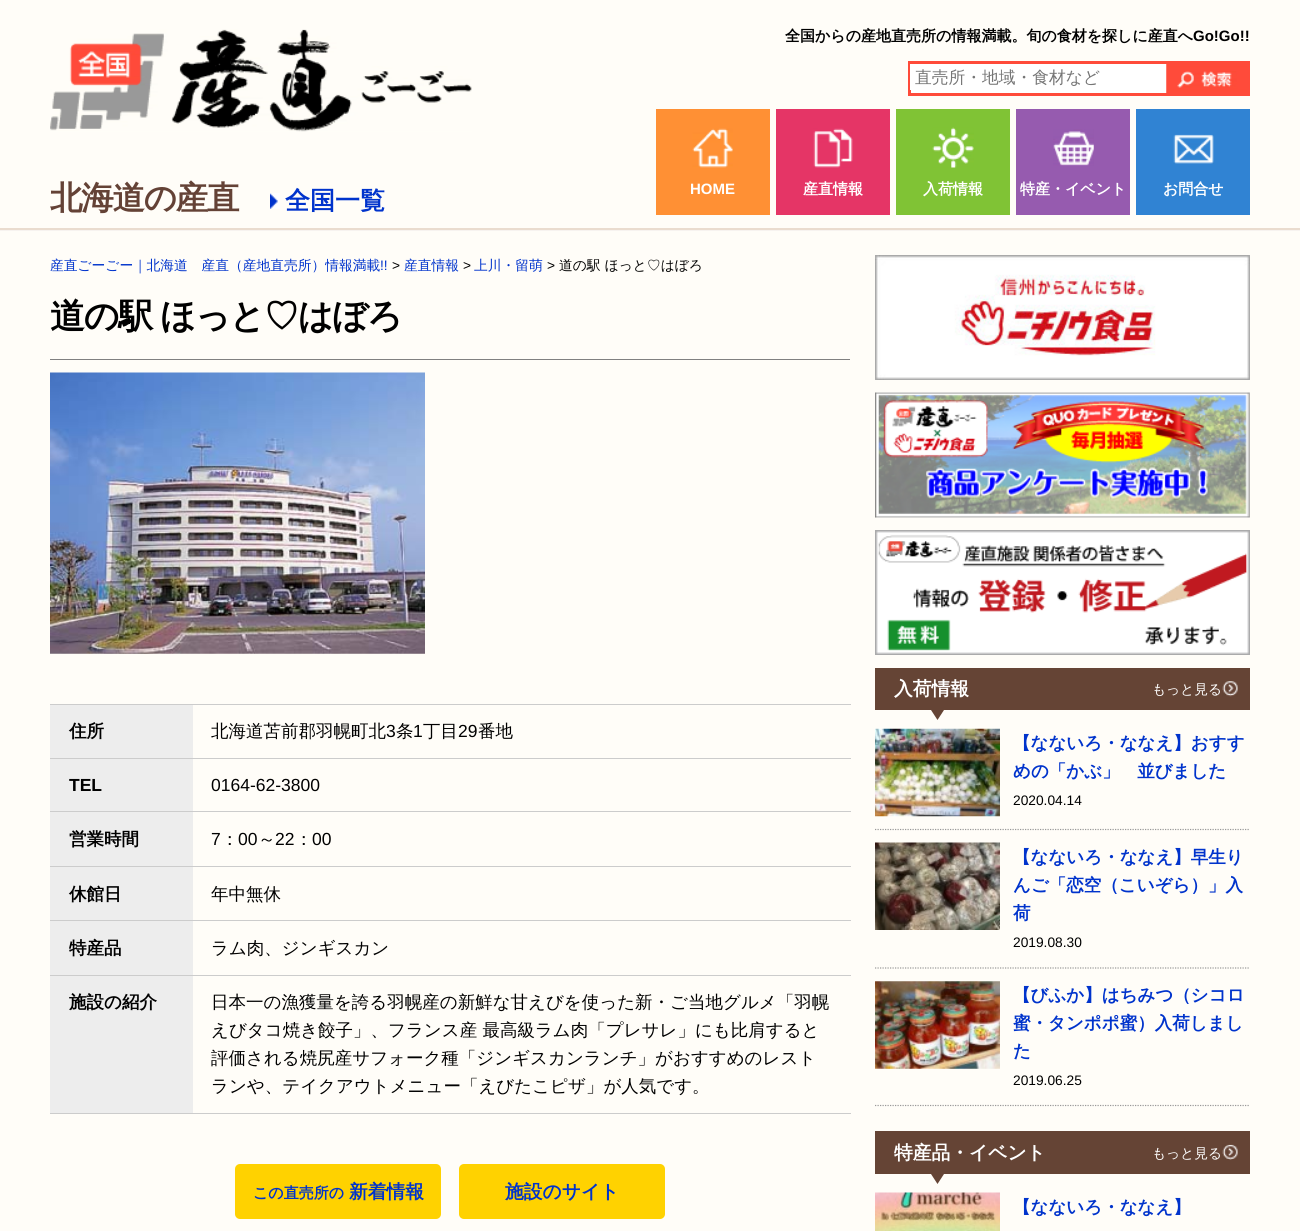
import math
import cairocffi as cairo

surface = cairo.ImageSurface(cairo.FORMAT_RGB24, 1300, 1231)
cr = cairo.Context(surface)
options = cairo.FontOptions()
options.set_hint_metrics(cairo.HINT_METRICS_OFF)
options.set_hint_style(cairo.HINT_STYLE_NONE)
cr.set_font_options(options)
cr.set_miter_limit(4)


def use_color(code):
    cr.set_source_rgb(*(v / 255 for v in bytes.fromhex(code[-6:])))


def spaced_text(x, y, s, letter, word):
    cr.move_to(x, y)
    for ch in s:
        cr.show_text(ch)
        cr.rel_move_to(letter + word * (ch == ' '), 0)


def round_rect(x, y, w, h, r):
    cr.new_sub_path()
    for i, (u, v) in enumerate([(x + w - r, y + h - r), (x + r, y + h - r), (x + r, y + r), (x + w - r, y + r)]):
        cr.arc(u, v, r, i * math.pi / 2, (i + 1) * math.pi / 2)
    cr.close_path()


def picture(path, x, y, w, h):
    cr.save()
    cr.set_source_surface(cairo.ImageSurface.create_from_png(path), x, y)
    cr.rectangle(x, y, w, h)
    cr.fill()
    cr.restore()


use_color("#fffdf8")
cr.paint()
use_color("#f7f3f0")
cr.rectangle(0, 230, 1300, 1)
cr.fill()
use_color("#eadccf")
cr.rectangle(0, 228, 1300, 2)
cr.fill()
cr.select_font_face("WenQuanYi Zen Hei", cairo.FONT_SLANT_NORMAL, cairo.FONT_WEIGHT_BOLD)
cr.set_font_size(32.5)
use_color("#644236")
spaced_text(50, 209, "北海道の産直", -1.25, 0)
picture("img1.png", 270, 193, 10, 16)
cr.set_font_size(25)
use_color("#0033cc")
cr.move_to(285, 209)
cr.show_text("全国一覧")
picture("img2.png", 50, 29, 422, 103)
cr.set_font_size(15)
use_color("#000000")
cr.move_to(785, 41)
cr.show_text("全国からの産地直売所の情報満載。旬の食材を探しに産直へ")
cr.select_font_face("Liberation Sans", cairo.FONT_SLANT_NORMAL, cairo.FONT_WEIGHT_BOLD)
cr.move_to(1193, 41)
cr.show_text("Go!Go!!")
use_color("#ffffff")
cr.rectangle(911, 64, 256, 29)
cr.fill()
cr.rectangle(909.5, 62.5, 339, 32)
use_color("#ff4b3a")
cr.set_line_width(3)
cr.stroke()
use_color("#ffffff")
cr.rectangle(910, 64, 1, 26)
cr.fill()
cr.select_font_face("WenQuanYi Zen Hei Medium")
cr.set_font_size(16.75)
use_color("#757575")
cr.move_to(915, 83)
cr.show_text("直売所・地域・食材など")
picture("img3.png", 1166, 64, 81, 29)
use_color("#ff9034")
cr.rectangle(656, 109, 114, 106)
cr.fill()
picture("img4.png", 692, 128, 41, 40)
cr.select_font_face("Liberation Sans", cairo.FONT_SLANT_NORMAL, cairo.FONT_WEIGHT_BOLD)
cr.set_font_size(15)
use_color("#ffffff")
cr.move_to(690, 194)
cr.show_text("HOME")
use_color("#e53566")
cr.rectangle(776, 109, 114, 106)
cr.fill()
picture("img5.png", 813, 128, 40, 40)
cr.select_font_face("WenQuanYi Zen Hei", cairo.FONT_SLANT_NORMAL, cairo.FONT_WEIGHT_BOLD)
use_color("#ffffff")
cr.move_to(803, 194)
cr.show_text("産直情報")
use_color("#80c335")
cr.rectangle(896, 109, 114, 106)
cr.fill()
picture("img6.png", 932, 127, 42, 41)
use_color("#ffffff")
cr.move_to(923, 194)
cr.show_text("入荷情報")
use_color("#965baf")
cr.rectangle(1016, 109, 114, 106)
cr.fill()
picture("img7.png", 1053, 129, 41, 37)
use_color("#ffffff")
cr.move_to(1020, 194)
cr.show_text("特産・イベント")
use_color("#3083d3")
cr.rectangle(1136, 109, 114, 106)
cr.fill()
picture("img8.png", 1173, 134, 41, 30)
use_color("#ffffff")
cr.move_to(1163, 194)
cr.show_text("お問合せ")
cr.select_font_face("WenQuanYi Zen Hei Medium")
cr.set_font_size(13.75)
use_color("#0033cc")
cr.move_to(50, 270)
cr.show_text("産直ごーごー｜北海道　産直（産地直売所）情報満載")
cr.select_font_face("Liberation Sans")
cr.move_to(380, 270)
cr.show_text("!!")
use_color("#000000")
cr.move_to(392, 270)
cr.show_text(">")
cr.select_font_face("WenQuanYi Zen Hei Medium")
use_color("#0033cc")
cr.move_to(404, 270)
cr.show_text("産直情報")
cr.select_font_face("Liberation Sans")
use_color("#000000")
cr.move_to(463, 270)
cr.show_text(">")
cr.select_font_face("WenQuanYi Zen Hei Medium")
use_color("#0033cc")
cr.move_to(474, 270)
cr.show_text("上川・留萌")
cr.select_font_face("Liberation Sans")
use_color("#000000")
cr.move_to(547, 270)
cr.show_text(">")
cr.select_font_face("WenQuanYi Zen Hei Medium")
cr.move_to(559, 270)
cr.show_text("道の駅 ほっと♡はぼろ")
use_color("#808080")
cr.rectangle(50, 359, 800, 1)
cr.fill()
cr.select_font_face("WenQuanYi Zen Hei", cairo.FONT_SLANT_NORMAL, cairo.FONT_WEIGHT_BOLD)
cr.set_font_size(35)
use_color("#000000")
spaced_text(50, 328, "道の駅 ほっと♡はぼろ", -1.25, -1)
picture("img9.png", 50, 372, 375, 282)
use_color("#cccccc")
cr.rectangle(50, 704, 801, 1)
cr.fill()
cr.rectangle(50, 758, 801, 1)
cr.fill()
use_color("#ededed")
cr.rectangle(50, 705, 143, 53)
cr.fill()
cr.set_font_size(17.5)
use_color("#000000")
cr.move_to(69, 737)
cr.show_text("住所")
cr.select_font_face("WenQuanYi Zen Hei Medium")
cr.move_to(211, 737)
cr.show_text("北海道苫前郡羽幌町北")
cr.select_font_face("Liberation Sans")
cr.move_to(386, 737)
cr.show_text("3")
cr.select_font_face("WenQuanYi Zen Hei Medium")
cr.move_to(396, 737)
cr.show_text("条")
cr.select_font_face("Liberation Sans")
cr.move_to(413, 737)
cr.show_text("1")
cr.select_font_face("WenQuanYi Zen Hei Medium")
cr.move_to(423, 737)
cr.show_text("丁目")
cr.select_font_face("Liberation Sans")
cr.move_to(458, 737)
cr.show_text("29")
cr.select_font_face("WenQuanYi Zen Hei Medium")
cr.move_to(478, 737)
cr.show_text("番地")
use_color("#ededed")
cr.rectangle(50, 759, 143, 107)
cr.fill()
use_color("#cccccc")
cr.rectangle(50, 811, 801, 1)
cr.fill()
cr.select_font_face("Liberation Sans", cairo.FONT_SLANT_NORMAL, cairo.FONT_WEIGHT_BOLD)
use_color("#000000")
cr.move_to(69, 791)
cr.show_text("TEL")
cr.select_font_face("Liberation Sans")
cr.move_to(211, 791)
cr.show_text("0164-62-3800")
use_color("#cccccc")
cr.rectangle(50, 866, 801, 1)
cr.fill()
cr.select_font_face("WenQuanYi Zen Hei", cairo.FONT_SLANT_NORMAL, cairo.FONT_WEIGHT_BOLD)
use_color("#000000")
cr.move_to(69, 845)
cr.show_text("営業時間")
cr.select_font_face("Liberation Sans")
cr.move_to(211, 845)
cr.show_text("7")
cr.select_font_face("WenQuanYi Zen Hei Medium")
cr.move_to(221, 845)
cr.show_text("：")
cr.select_font_face("Liberation Sans")
cr.move_to(238, 845)
cr.show_text("00")
cr.select_font_face("WenQuanYi Zen Hei Medium")
cr.move_to(258, 845)
cr.show_text("～")
cr.select_font_face("Liberation Sans")
cr.move_to(275, 845)
cr.show_text("22")
cr.select_font_face("WenQuanYi Zen Hei Medium")
cr.move_to(295, 845)
cr.show_text("：")
cr.select_font_face("Liberation Sans")
cr.move_to(312, 845)
cr.show_text("00")
use_color("#cccccc")
cr.rectangle(50, 920, 801, 1)
cr.fill()
use_color("#ededed")
cr.rectangle(50, 867, 143, 53)
cr.fill()
cr.select_font_face("WenQuanYi Zen Hei", cairo.FONT_SLANT_NORMAL, cairo.FONT_WEIGHT_BOLD)
use_color("#000000")
cr.move_to(69, 900)
cr.show_text("休館日")
cr.select_font_face("WenQuanYi Zen Hei Medium")
cr.move_to(211, 900)
cr.show_text("年中無休")
use_color("#cccccc")
cr.rectangle(50, 975, 801, 1)
cr.fill()
use_color("#ededed")
cr.rectangle(50, 921, 143, 54)
cr.fill()
cr.select_font_face("WenQuanYi Zen Hei", cairo.FONT_SLANT_NORMAL, cairo.FONT_WEIGHT_BOLD)
use_color("#000000")
cr.move_to(69, 954)
cr.show_text("特産品")
cr.select_font_face("WenQuanYi Zen Hei Medium")
cr.move_to(211, 954)
cr.show_text("ラム肉、ジンギスカン")
use_color("#cccccc")
cr.rectangle(50, 1113, 801, 1)
cr.fill()
use_color("#ededed")
cr.rectangle(50, 976, 143, 137)
cr.fill()
cr.select_font_face("WenQuanYi Zen Hei", cairo.FONT_SLANT_NORMAL, cairo.FONT_WEIGHT_BOLD)
use_color("#000000")
cr.move_to(69, 1008)
cr.show_text("施設の紹介")
cr.select_font_face("WenQuanYi Zen Hei Medium")
cr.move_to(211, 1008)
cr.show_text("日本一の漁獲量を誇る羽幌産の新鮮な甘えびを使った新・ご当地グルメ「羽幌")
cr.move_to(211, 1036)
cr.show_text("えびタコ焼き餃子」、フランス産 最高級ラム肉「プレサレ」にも比肩すると")
cr.move_to(211, 1064)
cr.show_text("評価される焼尻産サフォーク種「ジンギスカンランチ」がおすすめのレスト")
cr.move_to(211, 1092)
cr.show_text("ランや、テイクアウトメニュー「えびたこピザ」が人気です。")
use_color("#ffd200")
round_rect(235, 1164, 206, 55, 5)
cr.fill()
cr.select_font_face("WenQuanYi Zen Hei", cairo.FONT_SLANT_NORMAL, cairo.FONT_WEIGHT_BOLD)
cr.set_font_size(15)
use_color("#0033cc")
cr.move_to(253, 1198)
cr.show_text("この直売所の")
cr.set_font_size(18.75)
cr.move_to(349, 1198)
cr.show_text("新着情報")
use_color("#ffd200")
round_rect(459, 1164, 206, 55, 5)
cr.fill()
use_color("#0033cc")
cr.move_to(505, 1198)
cr.show_text("施設のサイト")
picture("img10.png", 875, 255, 375, 125)
picture("img11.png", 875, 392, 375, 126)
picture("img12.png", 875, 530, 375, 125)
use_color("#654435")
cr.rectangle(875, 668, 375, 42)
cr.fill()
use_color("#ffffff")
cr.move_to(894, 695)
cr.show_text("入荷情報")
use_color("#654435")
cr.new_path()
cr.move_to(931, 710)
cr.line_to(944, 710)
cr.line_to(937.5, 720)
cr.close_path()
cr.fill()
cr.select_font_face("WenQuanYi Zen Hei Medium")
cr.set_font_size(13.75)
use_color("#ffffff")
cr.move_to(1152, 694)
cr.show_text("もっと見る")
picture("img13.png", 1222, 681, 16, 16)
picture("img14.png", 875, 728, 125, 89)
cr.new_path()
cr.move_to(875, 829.5)
cr.line_to(1250, 829.5)
use_color("#999999")
cr.set_line_width(1.2)
cr.set_dash([1.25, 1.25])
cr.stroke()
cr.select_font_face("WenQuanYi Zen Hei", cairo.FONT_SLANT_NORMAL, cairo.FONT_WEIGHT_BOLD)
cr.set_font_size(17.5)
use_color("#0033cc")
cr.move_to(1013, 749)
cr.show_text("【なないろ・ななえ】おすす")
cr.move_to(1013, 777)
cr.show_text("めの「かぶ」　並びました")
cr.select_font_face("Liberation Sans")
cr.set_font_size(13.75)
use_color("#000000")
cr.move_to(1013, 805)
cr.show_text("2020.04.14")
picture("img15.png", 875, 842, 125, 88)
cr.new_path()
cr.move_to(875, 968)
cr.line_to(1250, 968)
use_color("#999999")
cr.stroke()
cr.select_font_face("WenQuanYi Zen Hei", cairo.FONT_SLANT_NORMAL, cairo.FONT_WEIGHT_BOLD)
cr.set_font_size(17.5)
use_color("#0033cc")
cr.move_to(1013, 863)
cr.show_text("【なないろ・ななえ】早生り")
cr.move_to(1013, 891)
cr.show_text("んご「恋空（こいぞら）」入")
cr.move_to(1013, 919)
cr.show_text("荷")
cr.select_font_face("Liberation Sans")
cr.set_font_size(13.75)
use_color("#000000")
cr.move_to(1013, 947)
cr.show_text("2019.08.30")
picture("img16.png", 875, 981, 125, 88)
cr.new_path()
cr.move_to(875, 1105.5)
cr.line_to(1250, 1105.5)
use_color("#999999")
cr.stroke()
cr.select_font_face("WenQuanYi Zen Hei", cairo.FONT_SLANT_NORMAL, cairo.FONT_WEIGHT_BOLD)
cr.set_font_size(17.5)
use_color("#0033cc")
cr.move_to(1013, 1001)
cr.show_text("【びふか】はちみつ（シコロ")
cr.move_to(1013, 1029)
cr.show_text("蜜・タンポポ蜜）入荷しまし")
cr.move_to(1013, 1057)
cr.show_text("た")
cr.select_font_face("Liberation Sans")
cr.set_font_size(13.75)
use_color("#000000")
cr.move_to(1013, 1085)
cr.show_text("2019.06.25")
use_color("#654435")
cr.rectangle(875, 1131, 375, 43)
cr.fill()
cr.select_font_face("WenQuanYi Zen Hei", cairo.FONT_SLANT_NORMAL, cairo.FONT_WEIGHT_BOLD)
cr.set_font_size(18.75)
use_color("#ffffff")
cr.move_to(894, 1159)
cr.show_text("特産品・イベント")
use_color("#654435")
cr.new_path()
cr.move_to(931, 1174)
cr.line_to(944, 1174)
cr.line_to(937.5, 1184)
cr.close_path()
cr.fill()
cr.select_font_face("WenQuanYi Zen Hei Medium")
cr.set_font_size(13.75)
use_color("#ffffff")
cr.move_to(1152, 1158)
cr.show_text("もっと見る")
picture("img17.png", 1222, 1144, 16, 16)
picture("img18.png", 875, 1192, 125, 39)
cr.select_font_face("WenQuanYi Zen Hei", cairo.FONT_SLANT_NORMAL, cairo.FONT_WEIGHT_BOLD)
cr.set_font_size(17.5)
use_color("#0033cc")
cr.move_to(1013, 1213)
cr.show_text("【なないろ・ななえ】")
surface.write_to_png("result.png")
